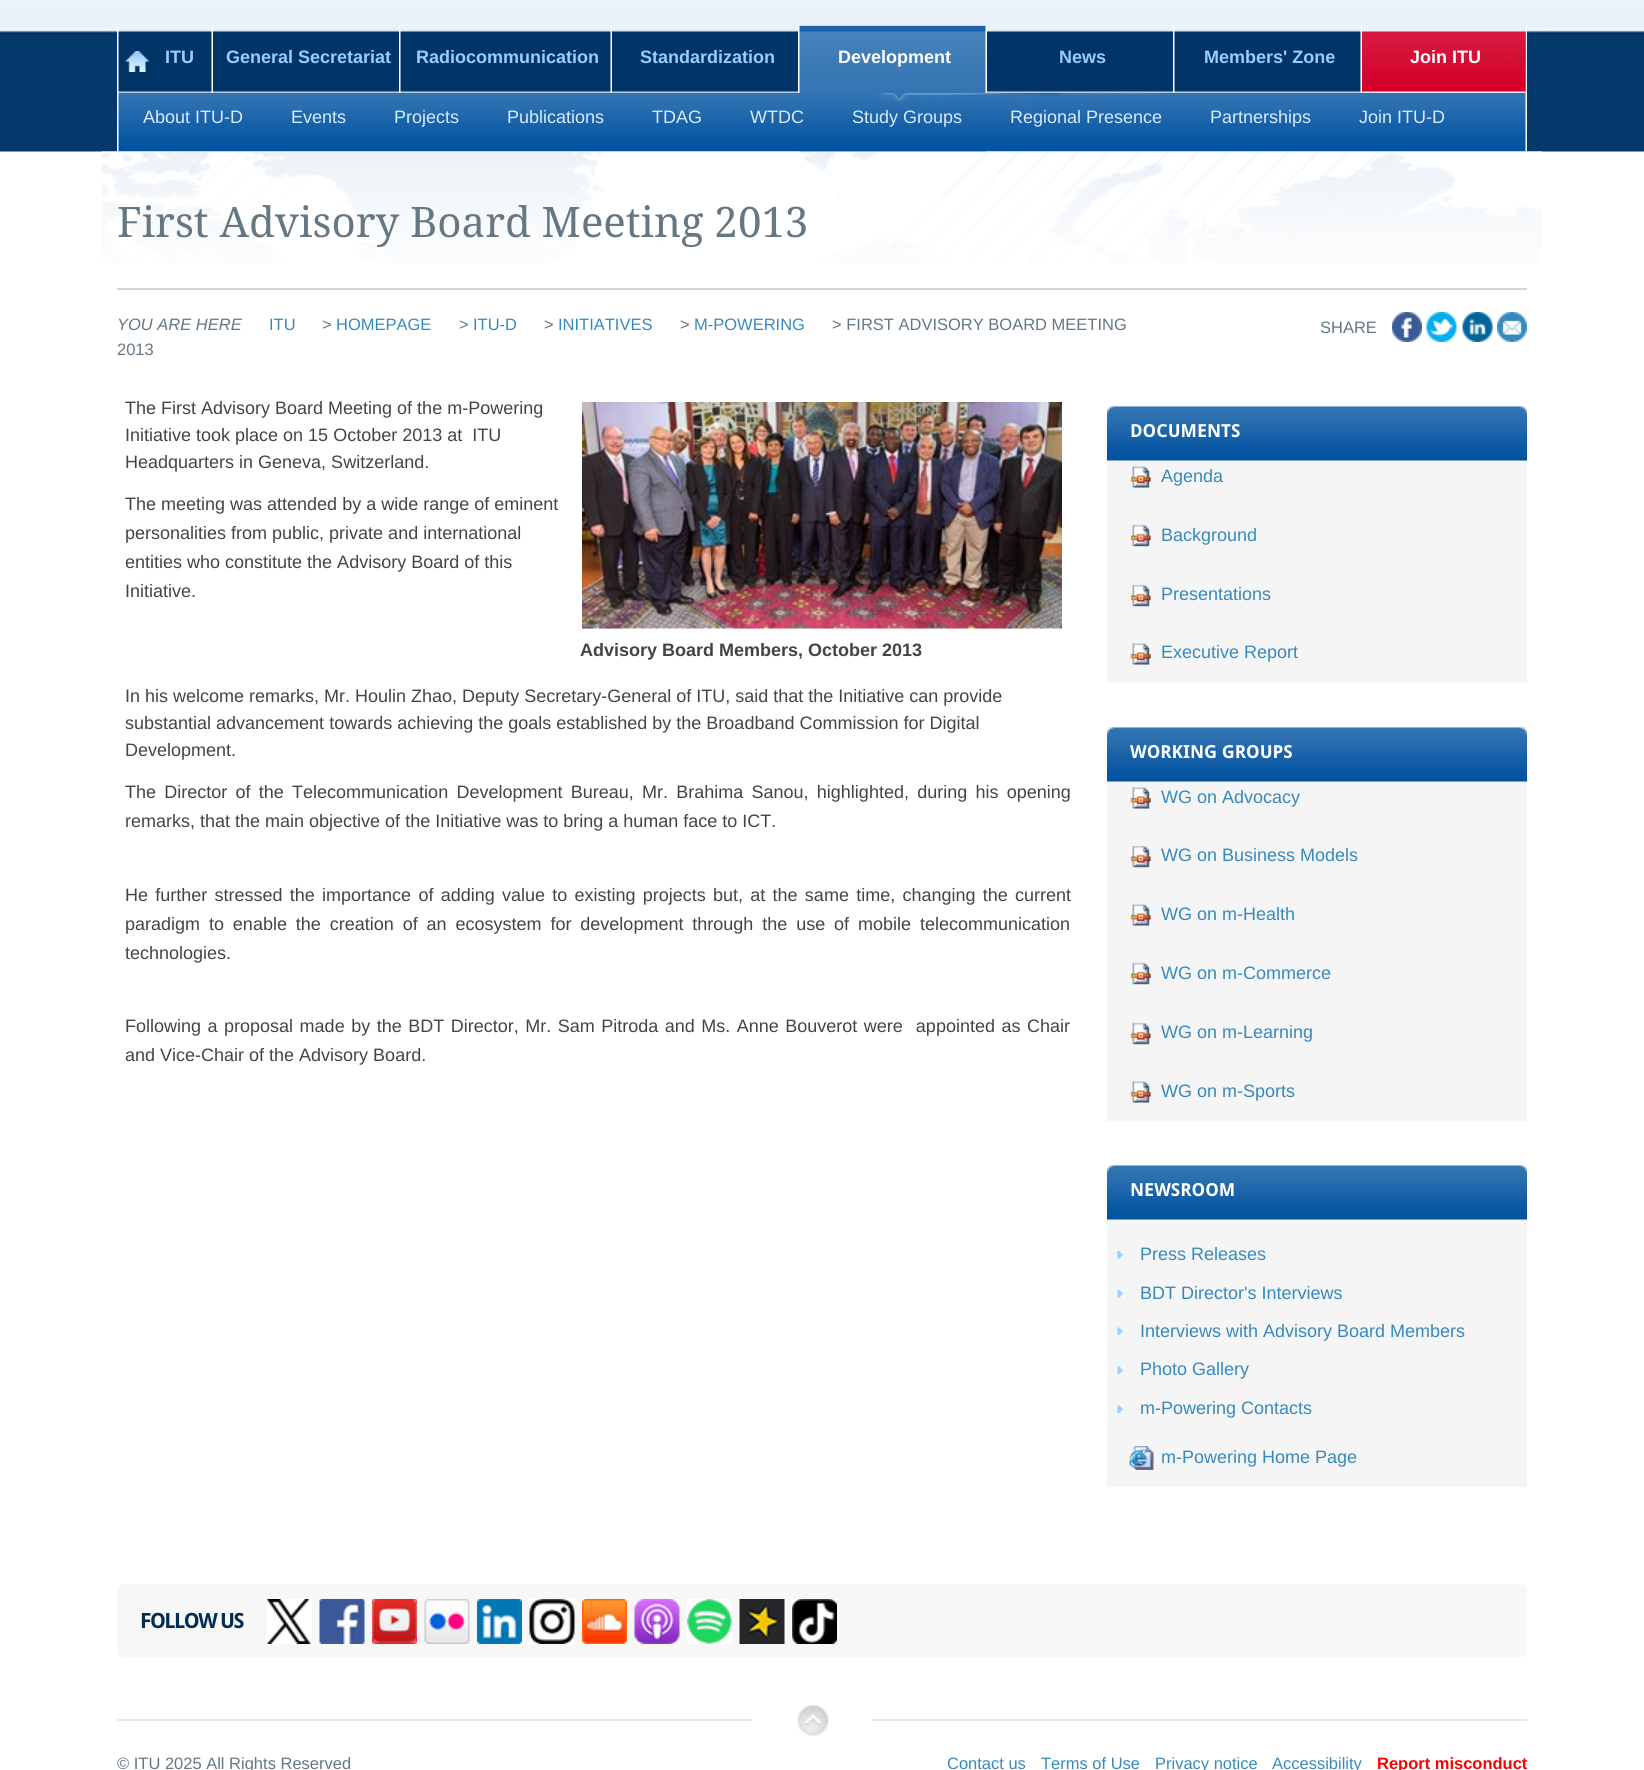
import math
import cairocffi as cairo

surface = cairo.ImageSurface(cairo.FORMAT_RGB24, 1644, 1770)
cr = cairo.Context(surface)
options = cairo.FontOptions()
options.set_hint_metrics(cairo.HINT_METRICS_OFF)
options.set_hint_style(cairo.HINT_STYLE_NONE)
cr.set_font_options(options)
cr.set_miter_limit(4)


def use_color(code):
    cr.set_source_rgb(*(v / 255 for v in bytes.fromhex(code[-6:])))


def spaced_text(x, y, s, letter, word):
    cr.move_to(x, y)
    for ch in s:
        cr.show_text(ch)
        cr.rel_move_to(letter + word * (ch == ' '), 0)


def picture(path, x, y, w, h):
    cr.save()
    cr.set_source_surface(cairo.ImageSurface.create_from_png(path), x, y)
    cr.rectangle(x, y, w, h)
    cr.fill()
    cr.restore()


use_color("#ffffff")
cr.paint()
picture("img1.png", 0, 0, 1644, 152)
picture("img11.png", 102, 151, 1440, 112)
use_color("#ffffff")
cr.rectangle(117, 26, 1410, 126)
cr.fill()
picture("img2.png", 799, 25, 187, 127)
cr.select_font_face("Liberation Sans", cairo.FONT_SLANT_NORMAL, cairo.FONT_WEIGHT_BOLD)
cr.set_font_size(18)
cr.move_to(838, 63)
cr.show_text("Development")
picture("img3.png", 118, 93, 1408, 59)
cr.select_font_face("Liberation Sans")
use_color("#d6ebff")
cr.move_to(143, 123)
cr.show_text("About ITU-D")
cr.move_to(291, 123)
cr.show_text("Events")
cr.move_to(394, 123)
cr.show_text("Projects")
cr.move_to(507, 123)
cr.show_text("Publications")
cr.move_to(652, 123)
cr.show_text("TDAG")
cr.move_to(750, 123)
cr.show_text("WTDC")
cr.move_to(852, 123)
cr.show_text("Study Groups")
cr.move_to(1010, 123)
cr.show_text("Regional Presence")
cr.move_to(1210, 123)
cr.show_text("Partnerships")
cr.move_to(1359, 123)
cr.show_text("Join ITU-D")
picture("img4.png", 118, 26, 94, 67)
picture("img5.png", 126, 51, 23, 21)
cr.select_font_face("Liberation Sans", cairo.FONT_SLANT_NORMAL, cairo.FONT_WEIGHT_BOLD)
use_color("#99ccff")
cr.move_to(165, 63)
cr.show_text("ITU")
picture("img6.png", 213, 26, 186, 67)
cr.move_to(226, 63)
cr.show_text("General Secretariat")
picture("img7.png", 400, 26, 211, 67)
cr.move_to(416, 63)
cr.show_text("Radiocommunication")
picture("img6.png", 612, 26, 186, 67)
cr.move_to(640, 63)
cr.show_text("Standardization")
picture("img6.png", 987, 26, 186, 67)
cr.move_to(1059, 63)
cr.show_text("News")
picture("img8.png", 1174, 26, 187, 67)
cr.move_to(1204, 63)
cr.show_text("Members' Zone")
picture("img9.png", 1507, 26, 19, 67)
picture("img10.png", 1362, 26, 164, 67)
use_color("#ffffff")
cr.move_to(1410, 63)
cr.show_text("Join ITU")
cr.select_font_face("Droid Serif")
cr.set_font_size(42)
use_color("#657782")
cr.move_to(117, 237)
cr.show_text("First Advisory Board Meeting 2013")
use_color("#d5d5d5")
cr.rectangle(117, 288, 1410, 2)
cr.fill()
cr.select_font_face("Liberation Sans", cairo.FONT_SLANT_ITALIC)
cr.set_font_size(16.5)
use_color("#657782")
cr.move_to(117, 330)
cr.show_text("YOU ARE HERE")
cr.select_font_face("Liberation Sans")
use_color("#3789bd")
cr.move_to(269, 330)
cr.show_text("ITU")
use_color("#657782")
cr.move_to(322, 330)
cr.show_text(">")
use_color("#3789bd")
cr.move_to(336, 330)
cr.show_text("HOMEPAGE")
use_color("#657782")
cr.move_to(459, 330)
cr.show_text(">")
use_color("#3789bd")
cr.move_to(473, 330)
cr.show_text("ITU-D")
use_color("#657782")
cr.move_to(544, 330)
cr.show_text(">")
use_color("#3789bd")
cr.move_to(558, 330)
cr.show_text("INITIATIVES")
use_color("#657782")
cr.move_to(680, 330)
cr.show_text(">")
use_color("#3789bd")
cr.move_to(694, 330)
cr.show_text("M-POWERING")
use_color("#657782")
cr.move_to(832, 330)
cr.show_text("> FIRST ADVISORY BOARD MEETING")
cr.move_to(117, 355)
cr.show_text("2013")
cr.move_to(1320, 333)
cr.show_text("SHARE")
picture("img12.png", 1392, 312, 30, 30)
picture("img13.png", 1426, 312, 31, 30)
picture("img14.png", 1462, 312, 31, 30)
picture("img15.png", 1497, 312, 30, 30)
cr.set_font_size(18)
use_color("#444444")
cr.move_to(125, 414)
cr.show_text("The First Advisory Board Meeting of the m-Powering")
cr.move_to(125, 441)
cr.show_text("Initiative took place on 15 October 2013 at  ITU")
cr.move_to(125, 468)
cr.show_text("Headquarters in Geneva, Switzerland.")
cr.move_to(125, 510)
cr.show_text("The meeting was attended by a wide range of eminent")
cr.move_to(125, 539)
cr.show_text("personalities from public, private and international")
cr.move_to(125, 568)
cr.show_text("entities who constitute the Advisory Board of this")
cr.move_to(125, 597)
cr.show_text("Initiative.")
picture("img16.png", 582, 402, 480, 227)
cr.select_font_face("Liberation Sans", cairo.FONT_SLANT_NORMAL, cairo.FONT_WEIGHT_BOLD)
cr.move_to(580, 656)
cr.show_text("Advisory Board Members, October 2013")
cr.select_font_face("Liberation Sans")
cr.move_to(125, 702)
cr.show_text("In his welcome remarks, Mr. Houlin Zhao, Deputy Secretary-General of ITU, said that the Initiative can provide")
cr.move_to(125, 729)
cr.show_text("substantial advancement towards achieving the goals established by the Broadband Commission for Digital")
cr.move_to(125, 756)
cr.show_text("Development.")
spaced_text(125, 798, "The Director of the Telecommunication Development Bureau, Mr. Brahima Sanou, highlighted, during his opening", 0, 3.25)
cr.move_to(125, 827)
cr.show_text("remarks, that the main objective of the Initiative was to bring a human face to ICT.")
spaced_text(125, 901, "He further stressed the importance of adding value to existing projects but, at the same time, changing the current", 0, 2.25)
spaced_text(125, 930, "paradigm to enable the creation of an ecosystem for development through the use of mobile telecommunication", 0, 3.9)
cr.move_to(125, 959)
cr.show_text("technologies.")
spaced_text(125, 1032, "Following a proposal made by the BDT Director, Mr. Sam Pitroda and Ms. Anne Bouverot were  appointed as Chair", 0, 1.5)
cr.move_to(125, 1061)
cr.show_text("and Vice-Chair of the Advisory Board.")
use_color("#f5f5f5")
cr.rectangle(1107, 406, 420, 277)
cr.fill()
picture("img17.png", 1107, 406, 420, 55)
cr.select_font_face("Droid Sans", cairo.FONT_SLANT_NORMAL, cairo.FONT_WEIGHT_BOLD)
use_color("#ffffff")
cr.move_to(1130, 437)
cr.show_text("DOCUMENTS")
picture("img18.png", 1130, 466, 21, 22)
cr.select_font_face("Liberation Sans")
use_color("#3789bd")
cr.move_to(1161, 482)
cr.show_text("Agenda")
picture("img19.png", 1130, 524, 21, 23)
cr.move_to(1161, 541)
cr.show_text("Background")
picture("img19.png", 1130, 584, 21, 23)
cr.move_to(1161, 600)
cr.show_text("Presentations")
picture("img18.png", 1130, 643, 21, 22)
cr.move_to(1161, 658)
cr.show_text("Executive Report")
use_color("#f5f5f5")
cr.rectangle(1107, 727, 420, 394)
cr.fill()
picture("img17.png", 1107, 727, 420, 55)
cr.select_font_face("Droid Sans", cairo.FONT_SLANT_NORMAL, cairo.FONT_WEIGHT_BOLD)
use_color("#ffffff")
cr.move_to(1130, 758)
cr.show_text("WORKING GROUPS")
picture("img18.png", 1130, 787, 21, 22)
cr.select_font_face("Liberation Sans")
use_color("#3789bd")
cr.move_to(1161, 803)
cr.show_text("WG on Advocacy")
picture("img19.png", 1130, 845, 21, 23)
cr.move_to(1161, 861)
cr.show_text("WG on Business Models")
picture("img18.png", 1130, 904, 21, 22)
cr.move_to(1161, 920)
cr.show_text("WG on m-Health")
picture("img19.png", 1130, 962, 21, 23)
cr.move_to(1161, 979)
cr.show_text("WG on m-Commerce")
picture("img19.png", 1130, 1022, 21, 23)
cr.move_to(1161, 1038)
cr.show_text("WG on m-Learning")
picture("img18.png", 1130, 1081, 21, 22)
cr.move_to(1161, 1097)
cr.show_text("WG on m-Sports")
use_color("#f5f5f5")
cr.rectangle(1107, 1165, 420, 322)
cr.fill()
picture("img17.png", 1107, 1165, 420, 55)
cr.select_font_face("Droid Sans", cairo.FONT_SLANT_NORMAL, cairo.FONT_WEIGHT_BOLD)
use_color("#ffffff")
cr.move_to(1130, 1196)
cr.show_text("NEWSROOM")
picture("img20.png", 1117, 1251, 7, 8)
cr.select_font_face("Liberation Sans")
use_color("#3789bd")
cr.move_to(1140, 1260)
cr.show_text("Press Releases")
picture("img20.png", 1117, 1290, 7, 8)
cr.move_to(1140, 1299)
cr.show_text("BDT Director's Interviews")
picture("img21.png", 1117, 1327, 7, 8)
cr.move_to(1140, 1337)
cr.show_text("Interviews with Advisory Board Members")
picture("img21.png", 1117, 1366, 7, 8)
cr.move_to(1140, 1375)
cr.show_text("Photo Gallery")
picture("img21.png", 1117, 1405, 7, 8)
cr.move_to(1140, 1414)
cr.show_text("m-Powering Contacts")
picture("img22.png", 1129, 1446, 25, 24)
cr.move_to(1161, 1463)
cr.show_text("m-Powering Home Page")
picture("img23.png", 117, 1584, 1410, 73)
cr.select_font_face("Droid Sans", cairo.FONT_SLANT_NORMAL, cairo.FONT_WEIGHT_BOLD)
cr.set_font_size(21)
use_color("#052d53")
spaced_text(140, 1628, "FOLLOW US", -1.5, 0)
picture("img24.png", 267, 1599, 45, 45)
picture("img25.png", 319, 1599, 46, 45)
picture("img26.png", 372, 1599, 45, 45)
picture("img27.png", 424, 1599, 46, 45)
picture("img28.png", 477, 1599, 45, 45)
picture("img29.png", 529, 1599, 46, 45)
picture("img30.png", 582, 1599, 45, 45)
picture("img31.png", 634, 1599, 46, 45)
picture("img32.png", 687, 1599, 45, 45)
picture("img33.png", 739, 1599, 46, 45)
picture("img34.png", 792, 1599, 45, 45)
use_color("#eaeaea")
cr.rectangle(117, 1719, 1410, 2)
cr.fill()
use_color("#ffffff")
cr.rectangle(752, 1719, 120, 2)
cr.fill()
picture("img35.png", 797, 1705, 32, 31)
cr.select_font_face("Liberation Sans")
cr.set_font_size(16.5)
use_color("#657782")
cr.move_to(117, 1769)
cr.show_text("© ITU 2025 All Rights Reserved")
use_color("#3789bd")
cr.move_to(947, 1769)
cr.show_text("Contact us")
cr.move_to(1041, 1769)
cr.show_text("Terms of Use")
cr.move_to(1155, 1769)
cr.show_text("Privacy notice")
cr.move_to(1272, 1769)
cr.show_text("Accessibility")
cr.select_font_face("Liberation Sans", cairo.FONT_SLANT_NORMAL, cairo.FONT_WEIGHT_BOLD)
use_color("#ff0000")
cr.move_to(1377, 1769)
cr.show_text("Report misconduct")
surface.write_to_png("result.png")
